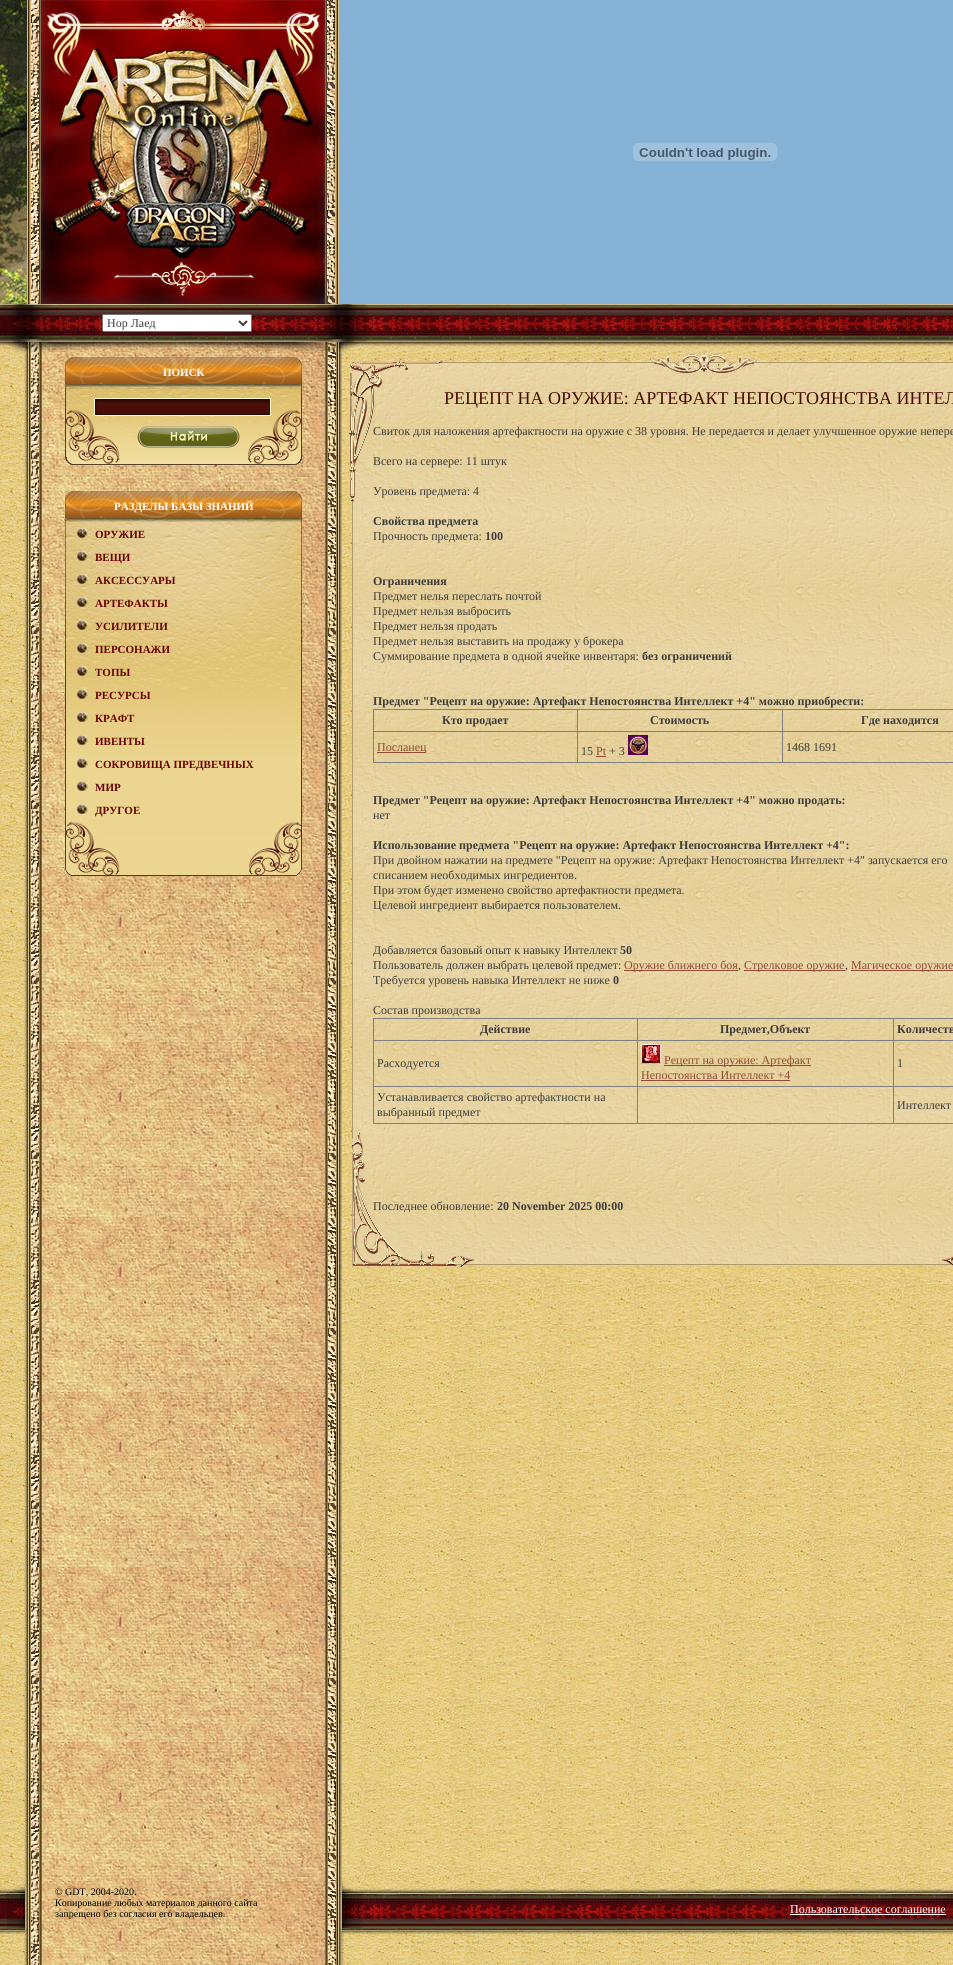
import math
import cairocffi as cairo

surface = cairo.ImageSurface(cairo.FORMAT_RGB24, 953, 1965)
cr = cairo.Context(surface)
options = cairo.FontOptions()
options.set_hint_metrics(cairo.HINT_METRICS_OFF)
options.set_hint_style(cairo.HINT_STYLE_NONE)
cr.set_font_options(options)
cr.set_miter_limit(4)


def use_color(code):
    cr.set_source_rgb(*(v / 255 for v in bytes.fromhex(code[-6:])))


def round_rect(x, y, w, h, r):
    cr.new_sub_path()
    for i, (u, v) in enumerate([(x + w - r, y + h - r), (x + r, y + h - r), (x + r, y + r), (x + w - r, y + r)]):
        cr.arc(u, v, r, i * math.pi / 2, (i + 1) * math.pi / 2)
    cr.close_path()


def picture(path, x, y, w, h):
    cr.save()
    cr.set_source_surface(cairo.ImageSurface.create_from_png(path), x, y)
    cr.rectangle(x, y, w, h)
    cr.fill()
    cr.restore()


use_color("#ffffff")
cr.paint()
picture("img1.png", 342, 362, 611, 1519)
picture("img2.png", 0, 0, 27, 304)
picture("img3.png", 27, 0, 312, 304)
use_color("#86b2d5")
cr.rectangle(339, 0, 614, 304)
cr.fill()
picture("img4.png", 633, 143, 144, 18)
picture("img5.png", 404, 304, 549, 38)
picture("img6.png", 0, 304, 404, 38)
use_color("#ffffff")
round_rect(102.5, 314.5, 149, 17, 1.5)
cr.fill_preserve()
use_color("#767676")
cr.set_line_width(1)
cr.stroke()
cr.new_path()
cr.move_to(239, 321)
cr.line_to(243, 325)
cr.line_to(247, 321)
use_color("#3c3c3c")
cr.set_line_width(2)
cr.stroke()
cr.select_font_face("Liberation Serif")
cr.set_font_size(12)
cr.move_to(107, 327)
cr.show_text("Нор Лаед")
picture("img7.png", 0, 362, 25, 1519)
picture("img8.png", 0, 342, 25, 20)
picture("img9.png", 25, 352, 317, 1529)
picture("img10.png", 25, 342, 317, 10)
picture("img11.png", 65, 357, 237, 31)
cr.select_font_face("Liberation Serif", cairo.FONT_SLANT_NORMAL, cairo.FONT_WEIGHT_BOLD)
cr.set_font_size(11)
use_color("#ffffff")
cr.move_to(163, 376)
cr.show_text("ПОИСК")
picture("img12.png", 65, 388, 237, 77)
picture("img13.png", 95, 399, 175, 16)
cr.rectangle(94.5, 398.5, 176, 17)
use_color("#fffdc1")
cr.set_line_width(1)
cr.stroke()
picture("img14.png", 137, 426, 103, 22)
picture("img11.png", 65, 491, 237, 31)
use_color("#ffffff")
cr.move_to(114, 510)
cr.show_text("РАЗДЕЛЫ БАЗЫ ЗНАНИЙ")
picture("img15.png", 65, 756, 237, 65)
picture("img16.png", 65, 522, 237, 234)
picture("img17.png", 77, 528, 11, 10)
use_color("#670303")
cr.move_to(95, 538)
cr.show_text("ОРУЖИЕ")
picture("img18.png", 77, 551, 11, 10)
cr.move_to(95, 561)
cr.show_text("ВЕЩИ")
picture("img19.png", 77, 574, 11, 10)
cr.move_to(95, 584)
cr.show_text("АКCЕСCУАРЫ")
picture("img20.png", 77, 597, 11, 10)
cr.move_to(95, 607)
cr.show_text("АРТЕФАКТЫ")
picture("img21.png", 77, 620, 11, 10)
cr.move_to(95, 630)
cr.show_text("УСИЛИТЕЛИ")
picture("img22.png", 77, 643, 11, 10)
cr.move_to(95, 653)
cr.show_text("ПЕРСОНАЖИ")
picture("img23.png", 77, 666, 11, 10)
cr.move_to(95, 676)
cr.show_text("ТОПЫ")
picture("img24.png", 77, 689, 11, 10)
cr.move_to(95, 699)
cr.show_text("РЕСУРСЫ")
picture("img25.png", 77, 712, 11, 10)
cr.move_to(95, 722)
cr.show_text("КРАФТ")
picture("img26.png", 77, 735, 11, 10)
cr.move_to(95, 745)
cr.show_text("ИВЕНТЫ")
picture("img27.png", 77, 758, 11, 10)
cr.move_to(95, 768)
cr.show_text("СОКРОВИЩА ПРЕДВЕЧНЫХ")
picture("img27.png", 77, 781, 11, 10)
cr.move_to(95, 791)
cr.show_text("МИР")
picture("img27.png", 77, 804, 11, 10)
cr.move_to(95, 814)
cr.show_text("ДРУГОЕ")
picture("img28.png", 65, 821, 237, 55)
picture("img29.png", 367, 342, 586, 20)
picture("img30.png", 342, 342, 25, 20)
picture("img31.png", 353, 363, 600, 901)
cr.rectangle(352.5, 362.5, 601, 902)
use_color("#ae9b6b")
cr.stroke()
picture("img32.png", 349, 360, 94, 143)
picture("img33.png", 651, 350, 106, 26)
cr.select_font_face("Liberation Serif")
cr.set_font_size(18)
use_color("#490d06")
cr.move_to(444, 404)
cr.show_text("РЕЦЕПТ НА ОРУЖИЕ: АРТЕФАКТ НЕПОСТОЯНСТВА ИНТЕЛ")
cr.set_font_size(12)
use_color("#3c3c3c")
cr.move_to(373, 435)
cr.show_text("Свиток для наложения артефактности на оружие с 38 уровня. Не передается и делает улучшенное оружие непере")
cr.move_to(373, 465)
cr.show_text("Всего на сервере: 11 штук")
cr.move_to(373, 495)
cr.show_text("Уровень предмета: 4")
cr.select_font_face("Liberation Serif", cairo.FONT_SLANT_NORMAL, cairo.FONT_WEIGHT_BOLD)
cr.move_to(373, 525)
cr.show_text("Свойства предмета")
cr.select_font_face("Liberation Serif")
cr.move_to(373, 540)
cr.show_text("Прочность предмета:")
cr.select_font_face("Liberation Serif", cairo.FONT_SLANT_NORMAL, cairo.FONT_WEIGHT_BOLD)
cr.move_to(485, 540)
cr.show_text("100")
cr.move_to(373, 585)
cr.show_text("Ограничения")
cr.select_font_face("Liberation Serif")
cr.move_to(373, 600)
cr.show_text("Предмет нелья переслать почтой")
cr.move_to(373, 615)
cr.show_text("Предмет нельзя выбросить")
cr.move_to(373, 630)
cr.show_text("Предмет нельзя продать")
cr.move_to(373, 645)
cr.show_text("Предмет нельзя выставить на продажу у брокера")
cr.move_to(373, 660)
cr.show_text("Суммирование предмета в одной ячейке инвентаря:")
cr.select_font_face("Liberation Serif", cairo.FONT_SLANT_NORMAL, cairo.FONT_WEIGHT_BOLD)
cr.move_to(642, 660)
cr.show_text("без ограничений")
cr.move_to(373, 705)
cr.show_text("Предмет \"Рецепт на оружие: Артефакт Непостоянства Интеллект +4\" можно приобрести:")
use_color("#808080")
cr.rectangle(373, 709, 580, 1)
cr.fill()
cr.rectangle(373, 762, 580, 1)
cr.fill()
cr.rectangle(373, 709, 1, 54)
cr.fill()
use_color("#3c3c3c")
cr.move_to(442, 724)
cr.show_text("Кто продает")
use_color("#808080")
cr.rectangle(782, 731, 171, 1)
cr.fill()
cr.rectangle(782, 731, 1, 32)
cr.fill()
cr.rectangle(577, 731, 206, 1)
cr.fill()
cr.rectangle(577, 731, 1, 32)
cr.fill()
cr.rectangle(373, 731, 205, 1)
cr.fill()
cr.rectangle(577, 709, 1, 23)
cr.fill()
use_color("#3c3c3c")
cr.move_to(650, 724)
cr.show_text("Стоимость")
use_color("#808080")
cr.rectangle(782, 709, 1, 23)
cr.fill()
use_color("#3c3c3c")
cr.move_to(861, 724)
cr.show_text("Где находится")
use_color("#8f4c33")
cr.rectangle(377, 752, 49, 1)
cr.fill()
cr.select_font_face("Liberation Serif")
cr.move_to(377, 751)
cr.show_text("Посланец")
use_color("#3c3c3c")
cr.move_to(581, 755)
cr.show_text("15")
use_color("#8f4c33")
cr.move_to(596, 755)
cr.show_text("Pt")
cr.rectangle(596, 756, 10, 1)
cr.fill()
use_color("#3c3c3c")
cr.move_to(609, 755)
cr.show_text("+ 3")
picture("img34.png", 628, 735, 20, 20)
cr.move_to(786, 751)
cr.show_text("1468 1691")
cr.select_font_face("Liberation Serif", cairo.FONT_SLANT_NORMAL, cairo.FONT_WEIGHT_BOLD)
cr.move_to(373, 804)
cr.show_text("Предмет \"Рецепт на оружие: Артефакт Непостоянства Интеллект +4\" можно продать:")
cr.select_font_face("Liberation Serif")
cr.move_to(373, 819)
cr.show_text("нет")
cr.select_font_face("Liberation Serif", cairo.FONT_SLANT_NORMAL, cairo.FONT_WEIGHT_BOLD)
cr.move_to(373, 849)
cr.show_text("Использование предмета \"Рецепт на оружие: Артефакт Непостоянства Интеллект +4\":")
cr.select_font_face("Liberation Serif")
cr.move_to(373, 864)
cr.show_text("При двойном нажатии на предмете \"Рецепт на оружие: Артефакт Непостоянства Интеллект +4\" запускается его")
cr.move_to(373, 879)
cr.show_text("списанием необходимых ингредиентов.")
cr.move_to(373, 894)
cr.show_text("При этом будет изменено свойство артефактности предмета.")
cr.move_to(373, 909)
cr.show_text("Целевой ингредиент выбирается пользователем.")
cr.move_to(373, 954)
cr.show_text("Добавляется базовый опыт к навыку Интеллект")
cr.select_font_face("Liberation Serif", cairo.FONT_SLANT_NORMAL, cairo.FONT_WEIGHT_BOLD)
cr.move_to(620, 954)
cr.show_text("50")
cr.select_font_face("Liberation Serif")
cr.move_to(373, 969)
cr.show_text("Пользователь должен выбрать целевой предмет:")
use_color("#8f4c33")
cr.rectangle(624, 970, 114, 1)
cr.fill()
cr.move_to(624, 969)
cr.show_text("Оружие ближнего боя")
use_color("#3c3c3c")
cr.move_to(738, 969)
cr.show_text(",")
use_color("#8f4c33")
cr.rectangle(744, 970, 101, 1)
cr.fill()
cr.move_to(744, 969)
cr.show_text("Стрелковое оружие")
use_color("#3c3c3c")
cr.move_to(845, 969)
cr.show_text(",")
use_color("#8f4c33")
cr.rectangle(851, 970, 102, 1)
cr.fill()
cr.move_to(851, 969)
cr.show_text("Магическое оружие")
use_color("#3c3c3c")
cr.move_to(373, 984)
cr.show_text("Требуется уровень навыка Интеллект не ниже")
cr.select_font_face("Liberation Serif", cairo.FONT_SLANT_NORMAL, cairo.FONT_WEIGHT_BOLD)
cr.move_to(613, 984)
cr.show_text("0")
cr.select_font_face("Liberation Serif")
cr.move_to(373, 1014)
cr.show_text("Состав производства")
use_color("#808080")
cr.rectangle(373, 1018, 580, 1)
cr.fill()
picture("img36.png", 352, 1123, 123, 144)
cr.rectangle(373, 1123, 580, 1)
cr.fill()
cr.rectangle(373, 1018, 1, 106)
cr.fill()
cr.select_font_face("Liberation Serif", cairo.FONT_SLANT_NORMAL, cairo.FONT_WEIGHT_BOLD)
use_color("#3c3c3c")
cr.move_to(480, 1033)
cr.show_text("Действие")
use_color("#808080")
cr.rectangle(893, 1040, 60, 1)
cr.fill()
cr.rectangle(893, 1086, 60, 1)
cr.fill()
cr.rectangle(893, 1086, 1, 38)
cr.fill()
cr.rectangle(637, 1086, 257, 1)
cr.fill()
cr.rectangle(893, 1040, 1, 47)
cr.fill()
cr.rectangle(637, 1040, 257, 1)
cr.fill()
cr.rectangle(637, 1086, 1, 38)
cr.fill()
cr.rectangle(373, 1086, 265, 1)
cr.fill()
cr.rectangle(637, 1040, 1, 47)
cr.fill()
cr.rectangle(373, 1040, 265, 1)
cr.fill()
cr.rectangle(637, 1018, 1, 23)
cr.fill()
use_color("#3c3c3c")
cr.move_to(720, 1033)
cr.show_text("Предмет,Объект")
use_color("#808080")
cr.rectangle(893, 1018, 1, 23)
cr.fill()
use_color("#3c3c3c")
cr.move_to(897, 1033)
cr.show_text("Количеств")
cr.select_font_face("Liberation Serif")
cr.move_to(377, 1067)
cr.show_text("Расходуется")
picture("img35.png", 641, 1044, 20, 20)
use_color("#8f4c33")
cr.rectangle(664, 1065, 147, 1)
cr.fill()
cr.move_to(664, 1064)
cr.show_text("Рецепт на оружие: Артефакт")
cr.move_to(641, 1079)
cr.show_text("Непостоянства Интеллект +4")
cr.rectangle(641, 1080, 149, 1)
cr.fill()
use_color("#3c3c3c")
cr.move_to(897, 1067)
cr.show_text("1")
cr.move_to(377, 1101)
cr.show_text("Устанавливается свойство артефактности на")
cr.move_to(377, 1116)
cr.show_text("выбранный предмет")
cr.move_to(897, 1109)
cr.show_text("Интеллект")
cr.move_to(373, 1210)
cr.show_text("Последнее обновление:")
cr.select_font_face("Liberation Serif", cairo.FONT_SLANT_NORMAL, cairo.FONT_WEIGHT_BOLD)
cr.move_to(497, 1210)
cr.show_text("20 November 2025 00:00")
picture("img37.png", 941, 1256, 12, 10)
picture("img38.png", 0, 1881, 25, 84)
picture("img39.png", 25, 1881, 317, 84)
cr.select_font_face("Liberation Serif")
cr.set_font_size(10)
use_color("#000000")
cr.move_to(55, 1895)
cr.show_text("© GDT, 2004-2020.")
cr.move_to(55, 1906)
cr.show_text("Копирование любых материалов данного сайта")
cr.move_to(55, 1917)
cr.show_text("запрещено без согласия его владельцев.")
picture("img40.png", 377, 1881, 576, 84)
picture("img41.png", 342, 1881, 35, 84)
cr.set_font_size(12)
use_color("#ffffff")
cr.move_to(790, 1913)
cr.show_text("Пользовательское соглашение")
cr.rectangle(790, 1914, 156, 1)
cr.fill()
surface.write_to_png("result.png")
